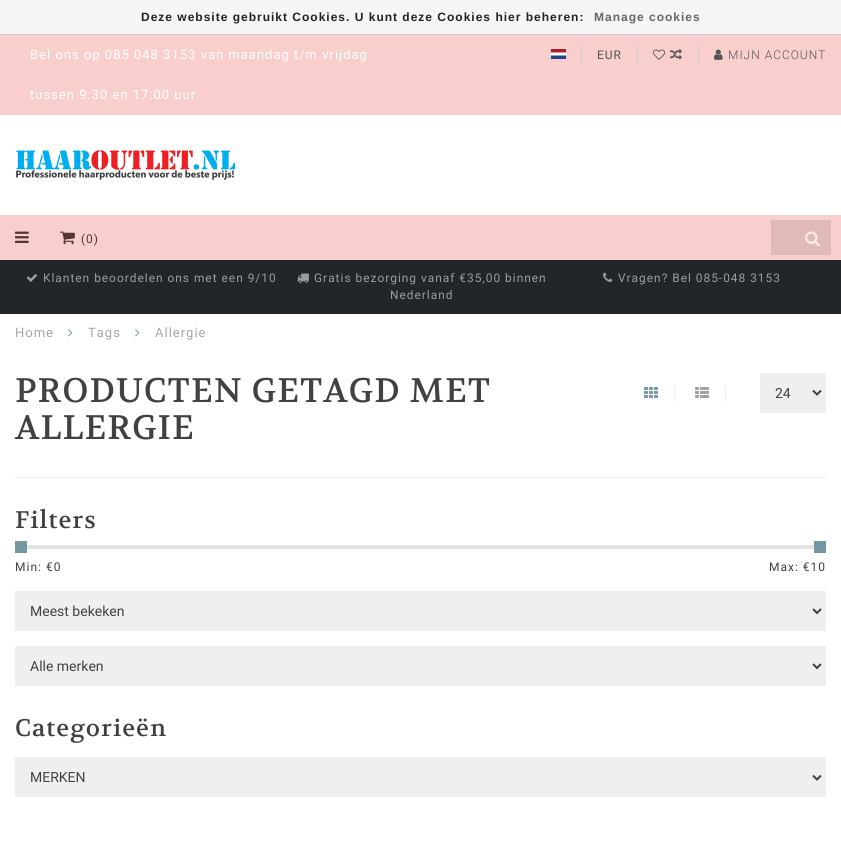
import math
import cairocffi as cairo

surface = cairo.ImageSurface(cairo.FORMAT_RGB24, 841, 841)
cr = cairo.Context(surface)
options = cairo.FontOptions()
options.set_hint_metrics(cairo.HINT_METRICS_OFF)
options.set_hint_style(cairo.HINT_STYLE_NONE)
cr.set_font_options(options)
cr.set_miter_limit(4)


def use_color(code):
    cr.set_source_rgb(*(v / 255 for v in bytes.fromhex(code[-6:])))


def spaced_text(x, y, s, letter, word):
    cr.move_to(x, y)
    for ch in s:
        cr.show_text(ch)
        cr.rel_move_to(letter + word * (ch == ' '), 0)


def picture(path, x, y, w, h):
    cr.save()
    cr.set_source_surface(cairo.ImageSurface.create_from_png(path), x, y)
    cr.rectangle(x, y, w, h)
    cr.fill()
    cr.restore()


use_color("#ffffff")
cr.paint()
use_color("#f5f5f5")
cr.rectangle(0, 0, 841, 34)
cr.fill()
use_color("#cccccc")
cr.rectangle(0, 34, 841, 1)
cr.fill()
cr.select_font_face("Liberation Sans", cairo.FONT_SLANT_NORMAL, cairo.FONT_WEIGHT_BOLD)
cr.set_font_size(12)
use_color("#222222")
spaced_text(141, 21, "Deze website gebruikt Cookies. U kunt deze Cookies hier beheren:", 1, 0)
use_color("#666666")
spaced_text(594, 21, "Manage cookies", 1, 0)
use_color("#f9cfcd")
cr.rectangle(0, 35, 841, 80)
cr.fill()
cr.select_font_face("Roboto")
cr.set_font_size(13)
use_color("#ffffff")
spaced_text(30, 59, "Bel ons op 085 048 3153 van maandag t/m vrijdag", 1, 0)
spaced_text(30, 99, "tussen 9:30 en 17:00 uur", 1, 0)
use_color("#cccccc")
cr.rectangle(581, 45, 1, 20)
cr.fill()
picture("img1.png", 551, 49, 15, 10)
cr.rectangle(637, 45, 1, 20)
cr.fill()
cr.set_font_size(12)
use_color("#525557")
spaced_text(597, 59, "EUR", 1, 0)
use_color("#cccccc")
cr.rectangle(698, 45, 1, 20)
cr.fill()
picture("img2.png", 653, 49, 12, 11)
picture("img3.png", 670, 49, 12, 11)
picture("img4.png", 714, 49, 9, 11)
cr.select_font_face("Roboto Light")
use_color("#525557")
spaced_text(728, 59, "MIJN ACCOUNT", 1, 0)
picture("img5.png", 16, 150, 219, 30)
use_color("#f9cfcd")
cr.rectangle(0, 215, 841, 45)
cr.fill()
picture("img6.png", 15, 231, 14, 12)
picture("img7.png", 60, 231, 15, 14)
cr.select_font_face("Roboto")
use_color("#543535")
spaced_text(81, 243, "(0)", 1, 0)
use_color("#e0bab8")
cr.rectangle(771, 220, 60, 35)
cr.fill()
picture("img8.png", 805, 231, 15, 16)
use_color("#202629")
cr.rectangle(0, 260, 841, 54)
cr.fill()
picture("img9.png", 26, 274, 11, 8)
cr.set_font_size(11.9)
use_color("#9a9d9f")
spaced_text(43, 282, "Klanten beoordelen ons met een 9/10", 1, 0)
picture("img10.png", 297, 273, 12, 10)
spaced_text(314, 282, "Gratis bezorging vanaf €35,00 binnen", 1, 0)
spaced_text(390, 299, "Nederland", 1, 0)
picture("img11.png", 603, 272, 10, 10)
spaced_text(618, 282, "Vragen? Bel 085-048 3153", 1, 0)
cr.set_font_size(13)
use_color("#a5a5a5")
spaced_text(15, 337, "Home", 1, 0)
picture("img12.png", 68, 329, 5, 8)
spaced_text(88, 337, "Tags", 1, 0)
picture("img12.png", 135, 329, 5, 8)
spaced_text(155, 337, "Allergie", 1, 0)
cr.select_font_face("Volkhov")
cr.set_font_size(34)
use_color("#414141")
spaced_text(15, 402, "PRODUCTEN GETAGD MET", 1, 0)
spaced_text(15, 439, "ALLERGIE", 1, 0)
use_color("#eeeeee")
cr.rectangle(674, 385, 1, 16)
cr.fill()
picture("img13.png", 644, 387, 14, 11)
cr.rectangle(725, 385, 1, 16)
cr.fill()
picture("img14.png", 695, 387, 14, 11)
use_color("#efefef")
cr.rectangle(760, 373, 66, 40)
cr.fill()
cr.new_path()
cr.move_to(813, 390.5)
cr.line_to(817, 394.5)
cr.line_to(821, 390.5)
use_color("#414141")
cr.stroke()
cr.select_font_face("Roboto")
cr.set_font_size(14)
cr.move_to(775, 398)
cr.show_text("24")
use_color("#eeeeee")
cr.rectangle(15, 477, 811, 1)
cr.fill()
cr.select_font_face("Volkhov")
cr.set_font_size(24)
use_color("#414141")
spaced_text(15, 528, "Filters", 1, 0)
use_color("#e2e2e2")
cr.rectangle(25, 545, 789, 4)
cr.fill()
use_color("#7498a2")
cr.rectangle(15, 541, 12, 12)
cr.fill()
cr.rectangle(814, 541, 12, 12)
cr.fill()
cr.select_font_face("Roboto")
cr.set_font_size(12)
use_color("#414141")
spaced_text(15, 571, "Min: €0", 1, 0)
spaced_text(769, 571, "Max: €10", 1, 0)
use_color("#efefef")
cr.rectangle(15, 591, 811, 40)
cr.fill()
cr.new_path()
cr.move_to(813, 609)
cr.line_to(817, 613)
cr.line_to(821, 609)
use_color("#414141")
cr.stroke()
cr.set_font_size(14)
cr.move_to(30, 616)
cr.show_text("Meest bekeken")
use_color("#efefef")
cr.rectangle(15, 646, 811, 40)
cr.fill()
cr.new_path()
cr.move_to(813, 664)
cr.line_to(817, 668)
cr.line_to(821, 664)
use_color("#414141")
cr.stroke()
cr.move_to(30, 671)
cr.show_text("Alle merken")
cr.select_font_face("Volkhov")
cr.set_font_size(24)
spaced_text(15, 736, "Categorieën", 1, 0)
use_color("#efefef")
cr.rectangle(15, 757, 811, 40)
cr.fill()
cr.new_path()
cr.move_to(813, 775.5)
cr.line_to(817, 779.5)
cr.line_to(821, 775.5)
use_color("#414141")
cr.stroke()
cr.select_font_face("Roboto")
cr.set_font_size(14)
cr.move_to(30, 782)
cr.show_text("MERKEN")
surface.write_to_png("result.png")
